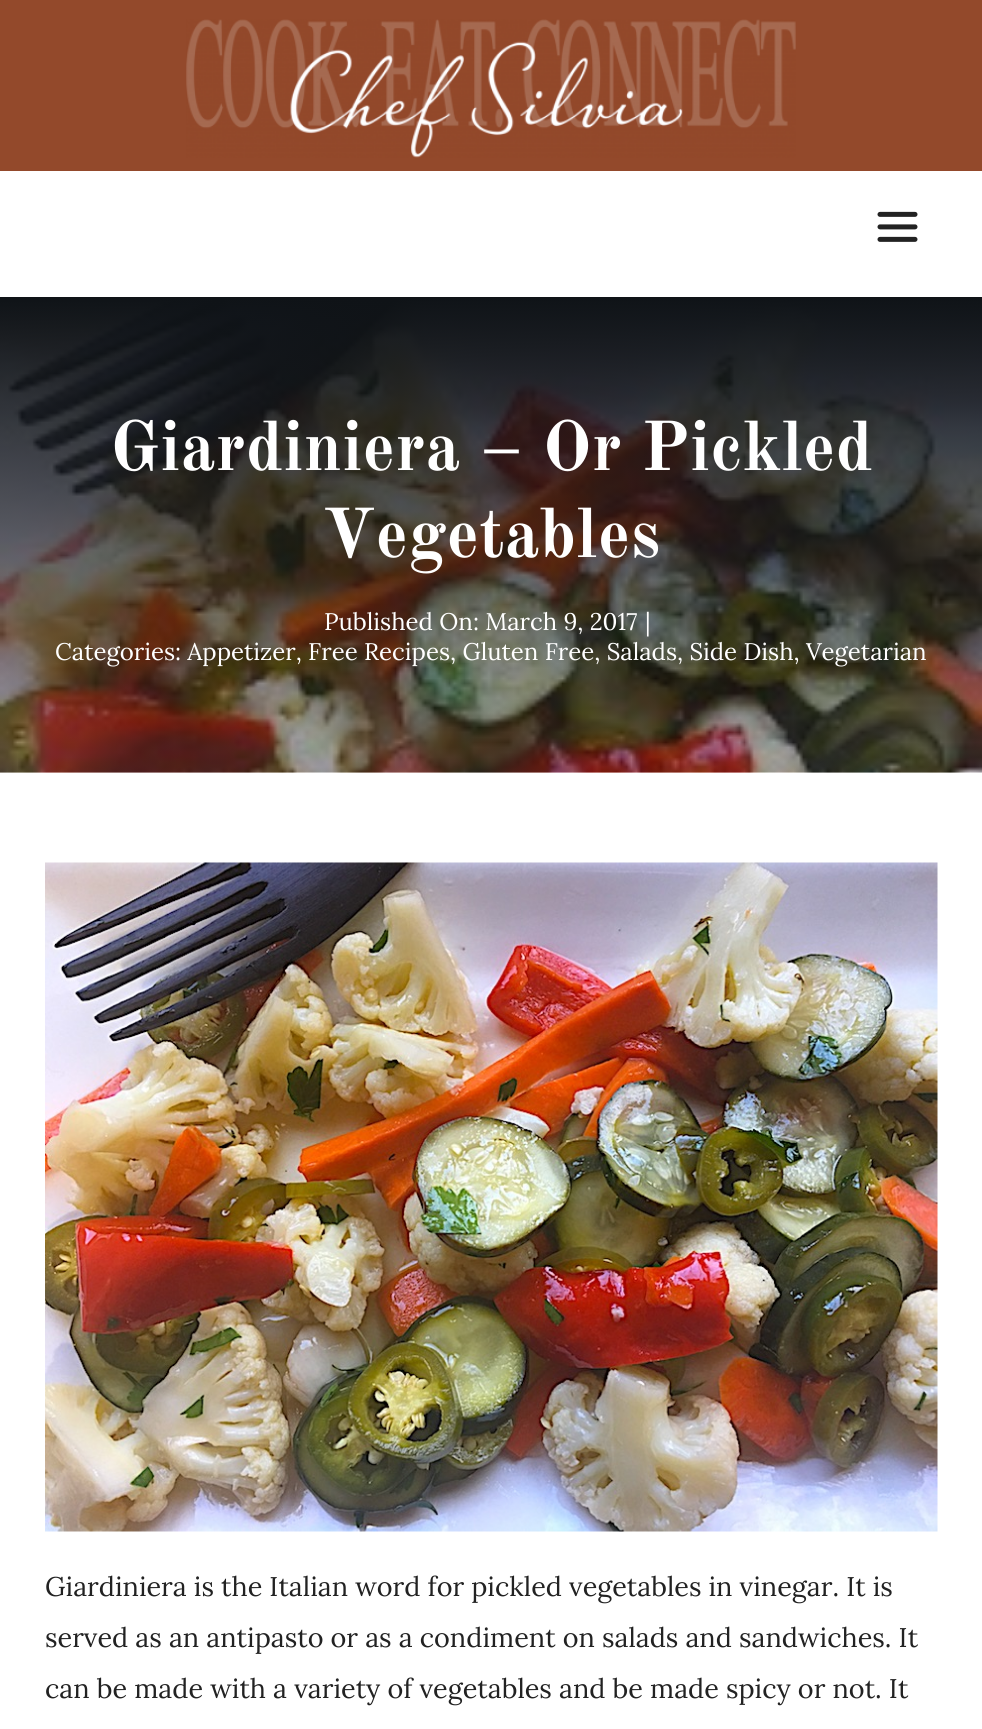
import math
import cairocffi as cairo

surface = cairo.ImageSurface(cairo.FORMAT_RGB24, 982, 1729)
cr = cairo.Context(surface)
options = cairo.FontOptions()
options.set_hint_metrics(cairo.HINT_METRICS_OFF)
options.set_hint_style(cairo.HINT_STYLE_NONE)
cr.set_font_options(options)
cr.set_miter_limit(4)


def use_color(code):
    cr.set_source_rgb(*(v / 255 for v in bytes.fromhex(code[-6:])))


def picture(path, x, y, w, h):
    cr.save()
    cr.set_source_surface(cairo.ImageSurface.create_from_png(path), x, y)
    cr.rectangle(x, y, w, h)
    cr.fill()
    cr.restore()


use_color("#ffffff")
cr.paint()
use_color("#93492b")
cr.rectangle(0, 0, 982, 171)
cr.fill()
picture("img1.png", 186, 19, 610, 139)
picture("img2.png", 877, 211, 41, 31)
picture("img3.png", 0, 297, 982, 476)
cr.select_font_face("Old Standard TT", cairo.FONT_SLANT_NORMAL, cairo.FONT_WEIGHT_BOLD)
cr.set_font_size(69.3)
use_color("#ffffff")
cr.move_to(110, 470)
cr.show_text("Giardiniera – Or Pickled")
cr.move_to(322, 557)
cr.show_text("Vegetables")
cr.select_font_face("Lora")
cr.set_font_size(24)
cr.move_to(324, 630)
cr.show_text("Published On: March 9, 2017")
cr.move_to(645, 630)
cr.show_text("|")
cr.move_to(55, 660)
cr.show_text("Categories: Appetizer, Free Recipes, Gluten Free, Salads, Side Dish, Vegetarian")
picture("img4.png", 45, 862, 893, 670)
cr.set_font_size(27)
use_color("#222222")
cr.move_to(45, 1596)
cr.show_text("Giardiniera is the Italian word for pickled vegetables in vinegar. It is")
cr.move_to(45, 1647)
cr.show_text("served as an antipasto or as a condiment on salads and sandwiches. It")
cr.move_to(45, 1698)
cr.show_text("can be made with a variety of vegetables and be made spicy or not. It")
surface.write_to_png("result.png")
